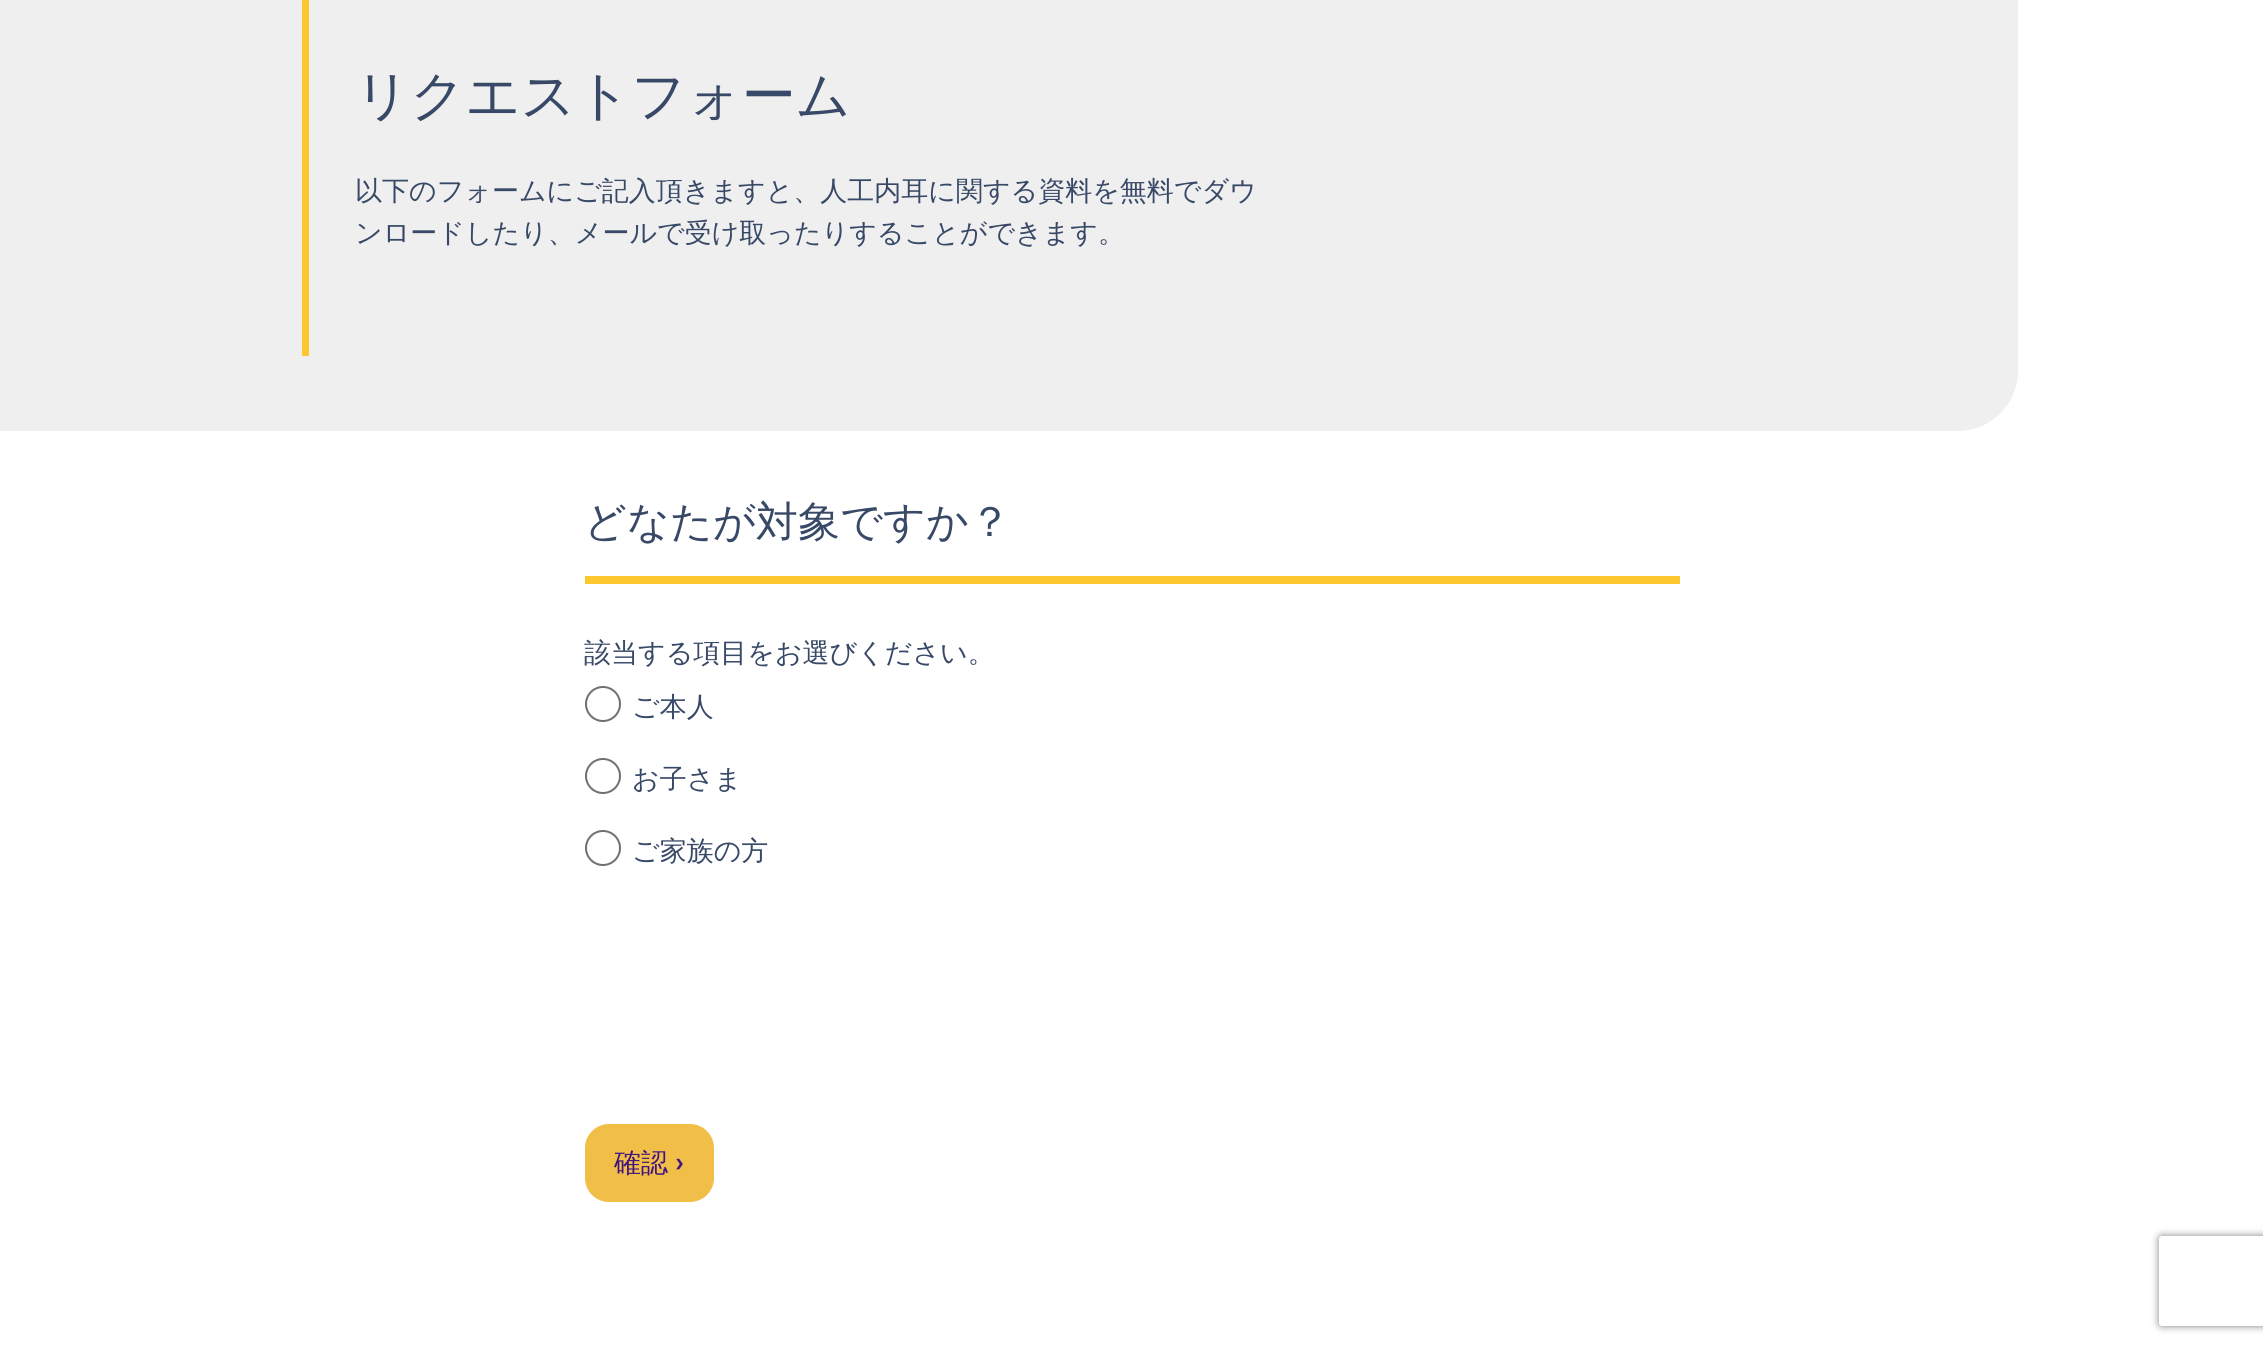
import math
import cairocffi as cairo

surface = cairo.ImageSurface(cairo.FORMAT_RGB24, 2263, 1346)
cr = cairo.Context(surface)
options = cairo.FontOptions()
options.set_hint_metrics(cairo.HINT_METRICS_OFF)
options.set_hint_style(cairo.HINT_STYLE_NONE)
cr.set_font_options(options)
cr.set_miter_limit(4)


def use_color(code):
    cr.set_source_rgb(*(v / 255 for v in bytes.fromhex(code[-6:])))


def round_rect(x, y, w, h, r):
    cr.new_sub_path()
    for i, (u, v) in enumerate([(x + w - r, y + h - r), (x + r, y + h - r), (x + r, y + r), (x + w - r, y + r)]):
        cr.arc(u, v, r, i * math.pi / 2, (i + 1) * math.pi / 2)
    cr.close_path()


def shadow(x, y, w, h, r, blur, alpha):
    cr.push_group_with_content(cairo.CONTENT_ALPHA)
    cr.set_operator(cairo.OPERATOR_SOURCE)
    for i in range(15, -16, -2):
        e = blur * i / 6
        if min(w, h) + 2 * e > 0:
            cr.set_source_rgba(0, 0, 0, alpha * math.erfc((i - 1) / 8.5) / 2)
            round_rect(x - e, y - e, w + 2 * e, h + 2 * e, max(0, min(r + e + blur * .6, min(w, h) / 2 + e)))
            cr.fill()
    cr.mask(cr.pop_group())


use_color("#ffffff")
cr.paint()
use_color("#efefef")
cr.rectangle(0, 0, 248, 431)
cr.fill()
cr.new_path()
cr.move_to(248, 0)
cr.line_to(2018, 0)
cr.line_to(2018, 371)
cr.curve_to(2018, 404, 1991, 431, 1958, 431)
cr.line_to(248, 431)
cr.close_path()
cr.fill()
use_color("#fdc82f")
cr.rectangle(302, 0, 7, 356)
cr.fill()
cr.select_font_face("WenQuanYi Zen Hei Medium")
cr.set_font_size(54)
use_color("#384967")
cr.move_to(355, 114)
cr.show_text("リクエストフォーム")
cr.set_font_size(27)
cr.move_to(355, 200)
cr.show_text("以下のフォームにご記入頂きますと、人工内耳に関する資料を無料でダウ")
cr.move_to(355, 242)
cr.show_text("ンロードしたり、メールで受け取ったりすることができます。")
use_color("#fdc82f")
cr.rectangle(585, 576, 1095, 8)
cr.fill()
cr.set_font_size(42)
use_color("#384967")
cr.move_to(584, 536)
cr.show_text("どなたが対象ですか？")
cr.set_font_size(27)
cr.move_to(584, 662)
cr.show_text("該当する項目をお選びください。")
cr.new_path()
cr.arc(603, 704, 17, 0, 2 * math.pi)
use_color("#707071")
cr.stroke()
use_color("#384967")
cr.move_to(632, 716)
cr.show_text("ご本人")
cr.new_path()
cr.arc(603, 776, 17, 0, 2 * math.pi)
use_color("#707071")
cr.stroke()
use_color("#384967")
cr.move_to(632, 788)
cr.show_text("お子さま")
cr.new_path()
cr.arc(603, 848, 17, 0, 2 * math.pi)
use_color("#707071")
cr.stroke()
use_color("#384967")
cr.move_to(632, 860)
cr.show_text("ご家族の方")
use_color("#f1be48")
round_rect(585, 1124, 129, 78, 24)
cr.fill()
use_color("#3f1482")
cr.move_to(614, 1172)
cr.show_text("確認")
cr.select_font_face("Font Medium")
cr.move_to(675, 1172)
cr.show_text("›")
cr.save()
cr.set_fill_rule(cairo.FILL_RULE_EVEN_ODD)
cr.new_path()
cr.move_to(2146, 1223)
cr.line_to(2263, 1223)
cr.line_to(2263, 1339)
cr.line_to(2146, 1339)
cr.close_path()
cr.move_to(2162, 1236)
cr.line_to(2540, 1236)
cr.curve_to(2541.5, 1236, 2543, 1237.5, 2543, 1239)
cr.line_to(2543, 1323)
cr.curve_to(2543, 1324.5, 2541.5, 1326, 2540, 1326)
cr.line_to(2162, 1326)
cr.curve_to(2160.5, 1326, 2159, 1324.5, 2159, 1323)
cr.line_to(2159, 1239)
cr.curve_to(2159, 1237.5, 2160.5, 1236, 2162, 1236)
cr.close_path()
cr.clip()
use_color("#808080")
shadow(2159, 1236, 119, 90, 3, 4, 1)
cr.restore()
surface.write_to_png("result.png")
